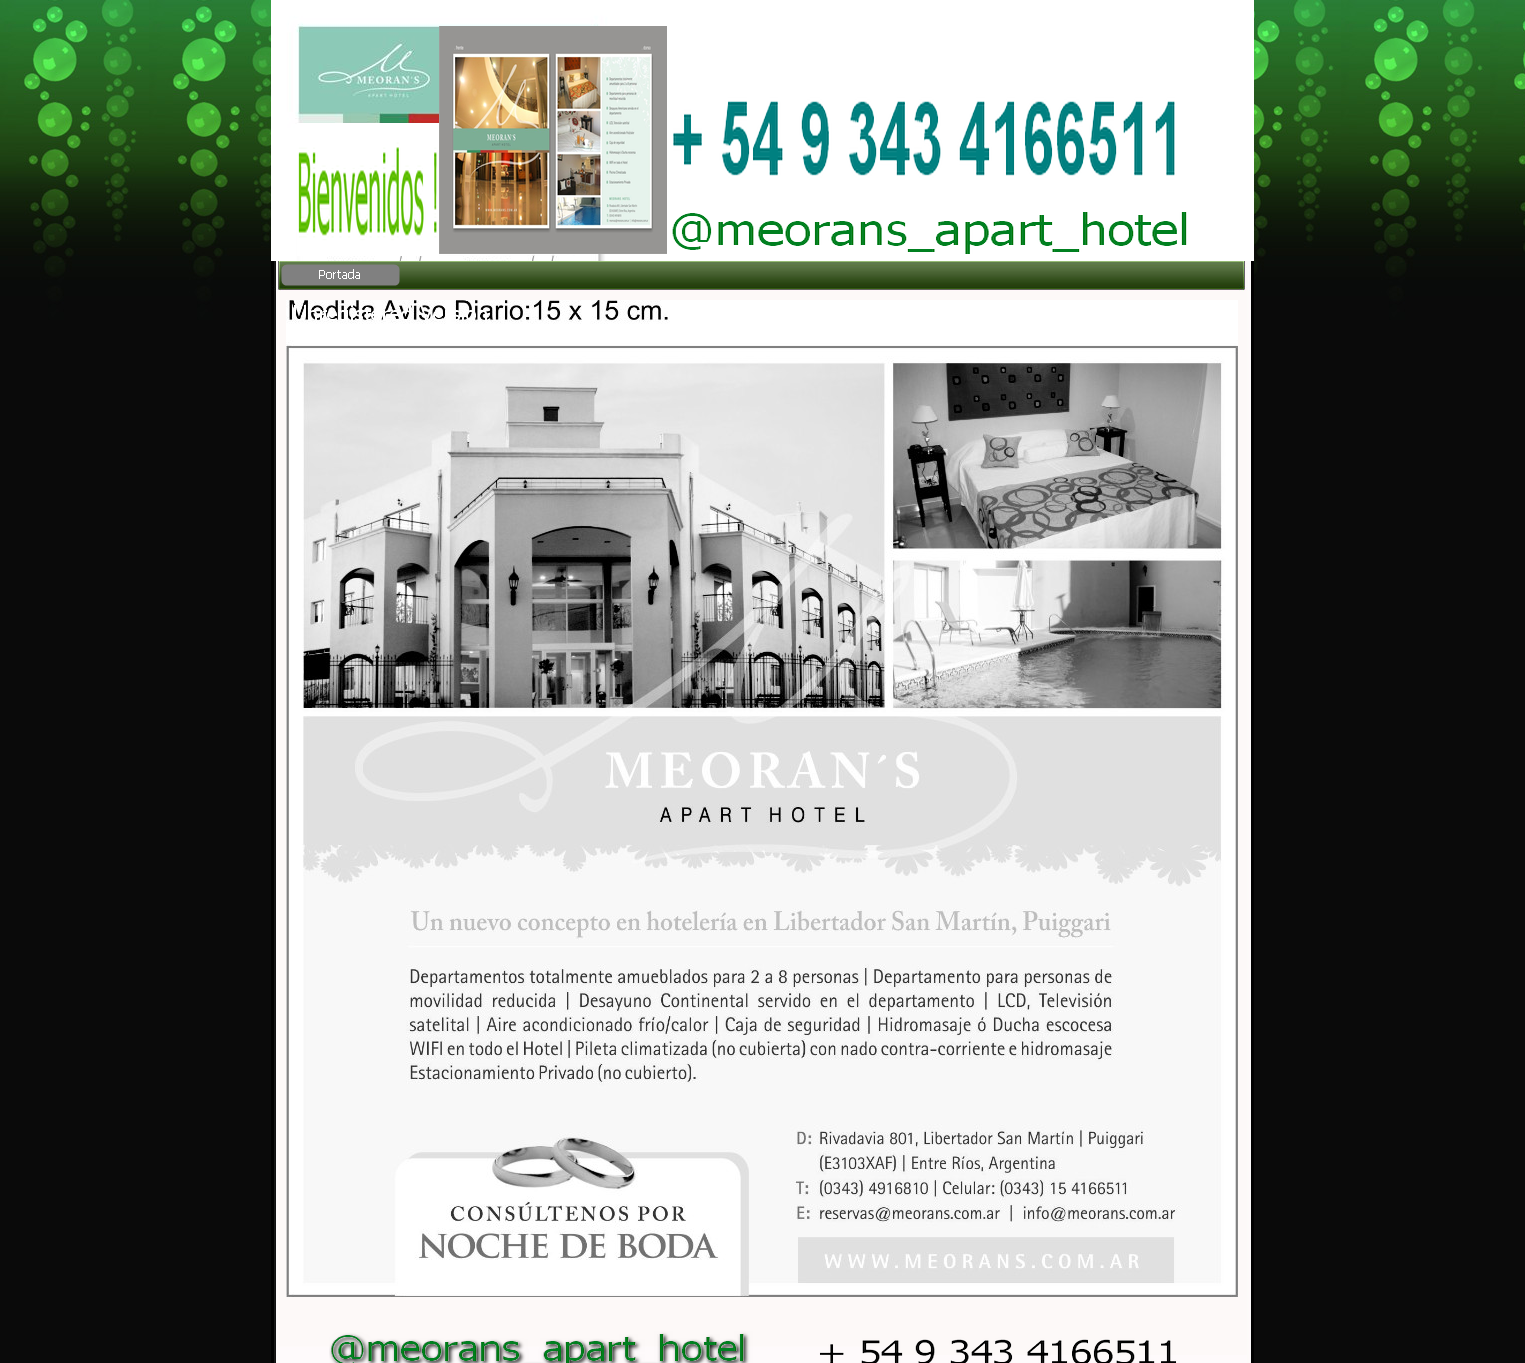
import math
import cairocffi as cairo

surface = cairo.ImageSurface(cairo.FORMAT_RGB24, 1525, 1363)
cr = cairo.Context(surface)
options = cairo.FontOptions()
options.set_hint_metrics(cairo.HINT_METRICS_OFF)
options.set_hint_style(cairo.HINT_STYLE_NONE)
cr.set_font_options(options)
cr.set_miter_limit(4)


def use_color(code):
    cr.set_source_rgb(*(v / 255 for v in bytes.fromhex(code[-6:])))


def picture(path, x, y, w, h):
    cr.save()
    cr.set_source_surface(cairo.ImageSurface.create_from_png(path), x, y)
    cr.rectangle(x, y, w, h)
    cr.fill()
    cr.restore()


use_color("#ffffff")
cr.paint()
picture("img1.png", 0, 0, 1525, 1363)
picture("img2.png", 271, 0, 983, 261)
picture("img3.png", 271, 261, 983, 30)
picture("img4.png", 281, 264, 119, 22)
picture("img5.png", 271, 291, 983, 1032)
picture("img6.png", 286, 300, 952, 997)
picture("img7.png", 271, 1323, 983, 40)
surface.write_to_png("result.png")
